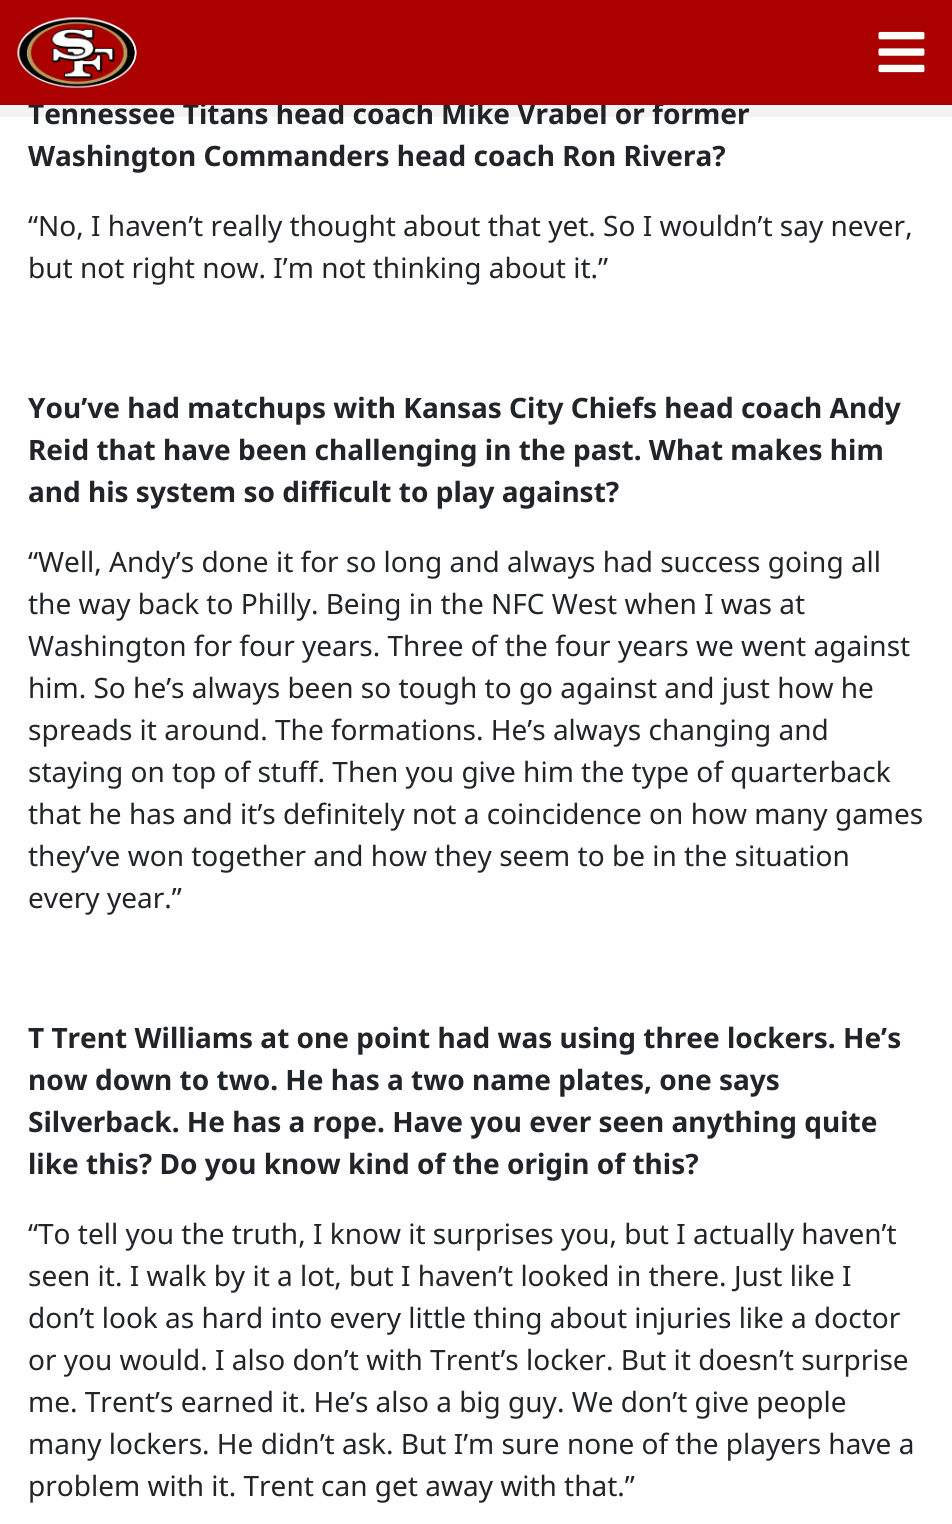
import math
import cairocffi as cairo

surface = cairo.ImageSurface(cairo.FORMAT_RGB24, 952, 1524)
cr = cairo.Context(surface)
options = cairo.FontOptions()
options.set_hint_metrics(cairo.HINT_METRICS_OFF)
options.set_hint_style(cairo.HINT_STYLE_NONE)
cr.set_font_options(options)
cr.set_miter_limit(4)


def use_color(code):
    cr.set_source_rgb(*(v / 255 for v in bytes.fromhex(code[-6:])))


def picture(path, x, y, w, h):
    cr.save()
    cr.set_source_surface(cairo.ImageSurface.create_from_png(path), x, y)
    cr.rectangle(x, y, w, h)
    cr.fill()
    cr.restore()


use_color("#ffffff")
cr.paint()
cr.select_font_face("Noto Sans", cairo.FONT_SLANT_NORMAL, cairo.FONT_WEIGHT_BOLD)
cr.set_font_size(28)
use_color("#212529")
cr.move_to(28, 124)
cr.show_text("Tennessee Titans head coach Mike Vrabel or former")
cr.rectangle(-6, -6, 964, 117)
cr.set_source_rgba(0, 0, 0, 0.05)
cr.set_line_width(12)
cr.stroke()
use_color("#aa0000")
cr.rectangle(0, 0, 952, 105)
cr.fill()
picture("img1.png", 17, 17, 120, 71)
picture("img2.png", 878, 31, 47, 42)
use_color("#212529")
cr.move_to(28, 166)
cr.show_text("Washington Commanders head coach Ron Rivera?")
cr.select_font_face("Noto Sans")
cr.move_to(28, 236)
cr.show_text("“No, I haven’t really thought about that yet. So I wouldn’t say never,")
cr.move_to(28, 278)
cr.show_text("but not right now. I’m not thinking about it.”")
cr.select_font_face("Noto Sans", cairo.FONT_SLANT_NORMAL, cairo.FONT_WEIGHT_BOLD)
cr.move_to(28, 418)
cr.show_text("You’ve had matchups with Kansas City Chiefs head coach Andy")
cr.move_to(28, 460)
cr.show_text("Reid that have been challenging in the past. What makes him")
cr.move_to(28, 502)
cr.show_text("and his system so difficult to play against?")
cr.select_font_face("Noto Sans")
cr.move_to(28, 572)
cr.show_text("“Well, Andy’s done it for so long and always had success going all")
cr.move_to(28, 614)
cr.show_text("the way back to Philly. Being in the NFC West when I was at")
cr.move_to(28, 656)
cr.show_text("Washington for four years. Three of the four years we went against")
cr.move_to(28, 698)
cr.show_text("him. So he’s always been so tough to go against and just how he")
cr.move_to(28, 740)
cr.show_text("spreads it around. The formations. He’s always changing and")
cr.move_to(28, 782)
cr.show_text("staying on top of stuff. Then you give him the type of quarterback")
cr.move_to(28, 824)
cr.show_text("that he has and it’s definitely not a coincidence on how many games")
cr.move_to(28, 866)
cr.show_text("they’ve won together and how they seem to be in the situation")
cr.move_to(28, 908)
cr.show_text("every year.”")
cr.select_font_face("Noto Sans", cairo.FONT_SLANT_NORMAL, cairo.FONT_WEIGHT_BOLD)
cr.move_to(28, 1048)
cr.show_text("T Trent Williams at one point had was using three lockers. He’s")
cr.move_to(28, 1090)
cr.show_text("now down to two. He has a two name plates, one says")
cr.move_to(28, 1132)
cr.show_text("Silverback. He has a rope. Have you ever seen anything quite")
cr.move_to(28, 1174)
cr.show_text("like this? Do you know kind of the origin of this?")
cr.select_font_face("Noto Sans")
cr.move_to(28, 1244)
cr.show_text("“To tell you the truth, I know it surprises you, but I actually haven’t")
cr.move_to(28, 1286)
cr.show_text("seen it. I walk by it a lot, but I haven’t looked in there. Just like I")
cr.move_to(28, 1328)
cr.show_text("don’t look as hard into every little thing about injuries like a doctor")
cr.move_to(28, 1370)
cr.show_text("or you would. I also don’t with Trent’s locker. But it doesn’t surprise")
cr.move_to(28, 1412)
cr.show_text("me. Trent’s earned it. He’s also a big guy. We don’t give people")
cr.move_to(28, 1454)
cr.show_text("many lockers. He didn’t ask. But I’m sure none of the players have a")
cr.move_to(28, 1496)
cr.show_text("problem with it. Trent can get away with that.”")
surface.write_to_png("result.png")
